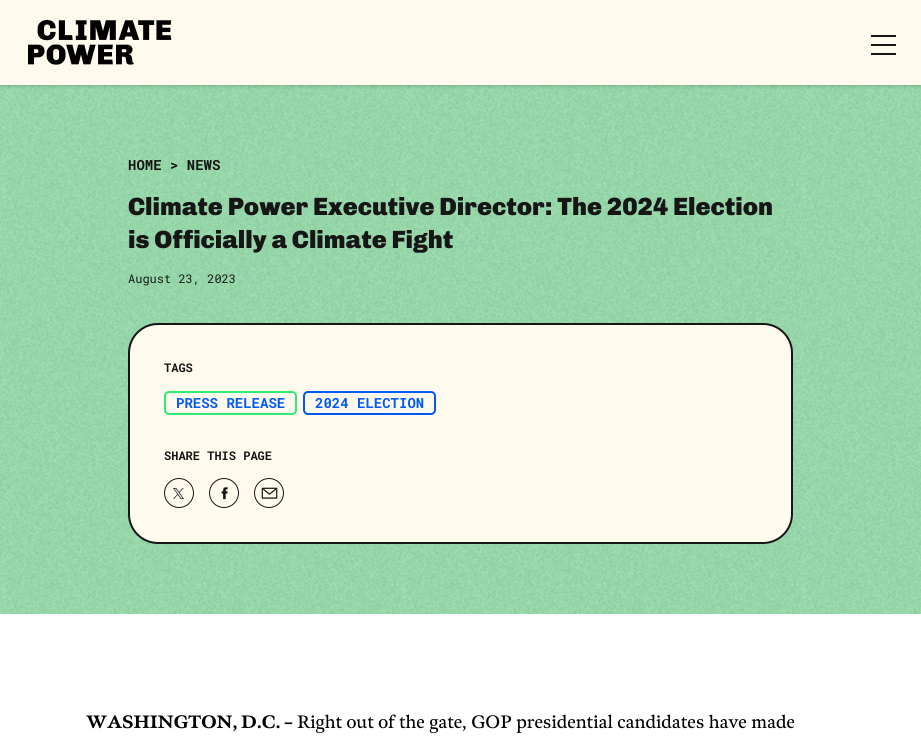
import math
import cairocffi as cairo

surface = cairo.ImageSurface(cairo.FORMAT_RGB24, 921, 747)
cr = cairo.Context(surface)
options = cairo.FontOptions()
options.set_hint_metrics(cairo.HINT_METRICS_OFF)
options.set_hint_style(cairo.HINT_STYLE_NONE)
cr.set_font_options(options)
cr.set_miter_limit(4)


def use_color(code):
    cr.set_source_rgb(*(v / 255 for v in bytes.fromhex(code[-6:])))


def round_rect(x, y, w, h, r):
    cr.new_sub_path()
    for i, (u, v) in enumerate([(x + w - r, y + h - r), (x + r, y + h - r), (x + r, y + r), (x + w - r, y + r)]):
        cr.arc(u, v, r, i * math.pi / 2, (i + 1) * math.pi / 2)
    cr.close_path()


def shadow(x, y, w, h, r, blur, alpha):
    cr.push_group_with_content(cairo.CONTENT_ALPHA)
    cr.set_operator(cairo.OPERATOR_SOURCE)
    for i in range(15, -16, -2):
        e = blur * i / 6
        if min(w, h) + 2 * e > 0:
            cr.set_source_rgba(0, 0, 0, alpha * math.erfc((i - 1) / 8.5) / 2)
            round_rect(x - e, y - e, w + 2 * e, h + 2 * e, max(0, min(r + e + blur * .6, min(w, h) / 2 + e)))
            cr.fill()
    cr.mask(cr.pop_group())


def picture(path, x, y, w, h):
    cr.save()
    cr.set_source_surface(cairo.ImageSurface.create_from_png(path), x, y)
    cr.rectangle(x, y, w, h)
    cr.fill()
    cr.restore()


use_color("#ffffff")
cr.paint()
use_color("#97ddac")
cr.rectangle(0, 85, 921, 529)
cr.fill()
picture("img2.png", 0, 85, 921, 529)
use_color("#000000")
shadow(0, 1, 921, 85, 0, 2, 0.2)
use_color("#fffaee")
cr.rectangle(0, 0, 921, 85)
cr.fill()
picture("img1.png", 28, 20, 144, 45)
use_color("#161616")
cr.rectangle(871, 35, 25, 2)
cr.fill()
cr.rectangle(871, 44, 25, 2)
cr.fill()
cr.rectangle(871, 53, 25, 2)
cr.fill()
cr.select_font_face("Roboto Mono", cairo.FONT_SLANT_NORMAL, cairo.FONT_WEIGHT_BOLD)
cr.set_font_size(14)
cr.move_to(128, 170)
cr.show_text("HOME > NEWS")
cr.select_font_face("Chivo Medium")
cr.set_font_size(25)
cr.move_to(128, 215)
cr.show_text("Climate Power Executive Director: The 2024 Election")
cr.move_to(128, 248)
cr.show_text("is Officially a Climate Fight")
cr.select_font_face("Roboto Mono")
cr.set_font_size(12)
cr.move_to(128, 283)
cr.show_text("August 23, 2023")
use_color("#fffaee")
round_rect(129, 324, 663, 219, 29)
cr.fill_preserve()
use_color("#161616")
cr.stroke()
cr.select_font_face("Roboto Mono", cairo.FONT_SLANT_NORMAL, cairo.FONT_WEIGHT_BOLD)
cr.move_to(164, 372)
cr.show_text("TAGS")
round_rect(165, 392, 131, 22, 4)
use_color("#2eeb73")
cr.stroke()
cr.set_font_size(14)
use_color("#0059f5")
cr.move_to(176, 408)
cr.show_text("PRESS RELEASE")
round_rect(304, 392, 131, 22, 4)
cr.stroke()
cr.move_to(315, 408)
cr.show_text("2024 ELECTION")
cr.set_font_size(12)
use_color("#161616")
cr.move_to(164, 460)
cr.show_text("SHARE THIS PAGE")
cr.new_path()
cr.arc(179, 493, 14.5, 0, 2 * math.pi)
cr.set_line_width(1)
cr.stroke()
picture("img3.png", 173, 488, 11, 11)
cr.arc(224, 493, 14.5, 0, 2 * math.pi)
cr.stroke()
picture("img4.png", 221, 487, 7, 13)
cr.arc(269, 493, 14.5, 0, 2 * math.pi)
cr.stroke()
picture("img5.png", 261, 487, 17, 12)
cr.select_font_face("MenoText", cairo.FONT_SLANT_NORMAL, cairo.FONT_WEIGHT_BOLD)
cr.set_font_size(18)
use_color("#000000")
cr.move_to(86, 728)
cr.show_text("WASHINGTON, D.C. –")
cr.select_font_face("MenoText")
cr.move_to(297, 728)
cr.show_text("Right out of the gate, GOP presidential candidates have made")
surface.write_to_png("result.png")
